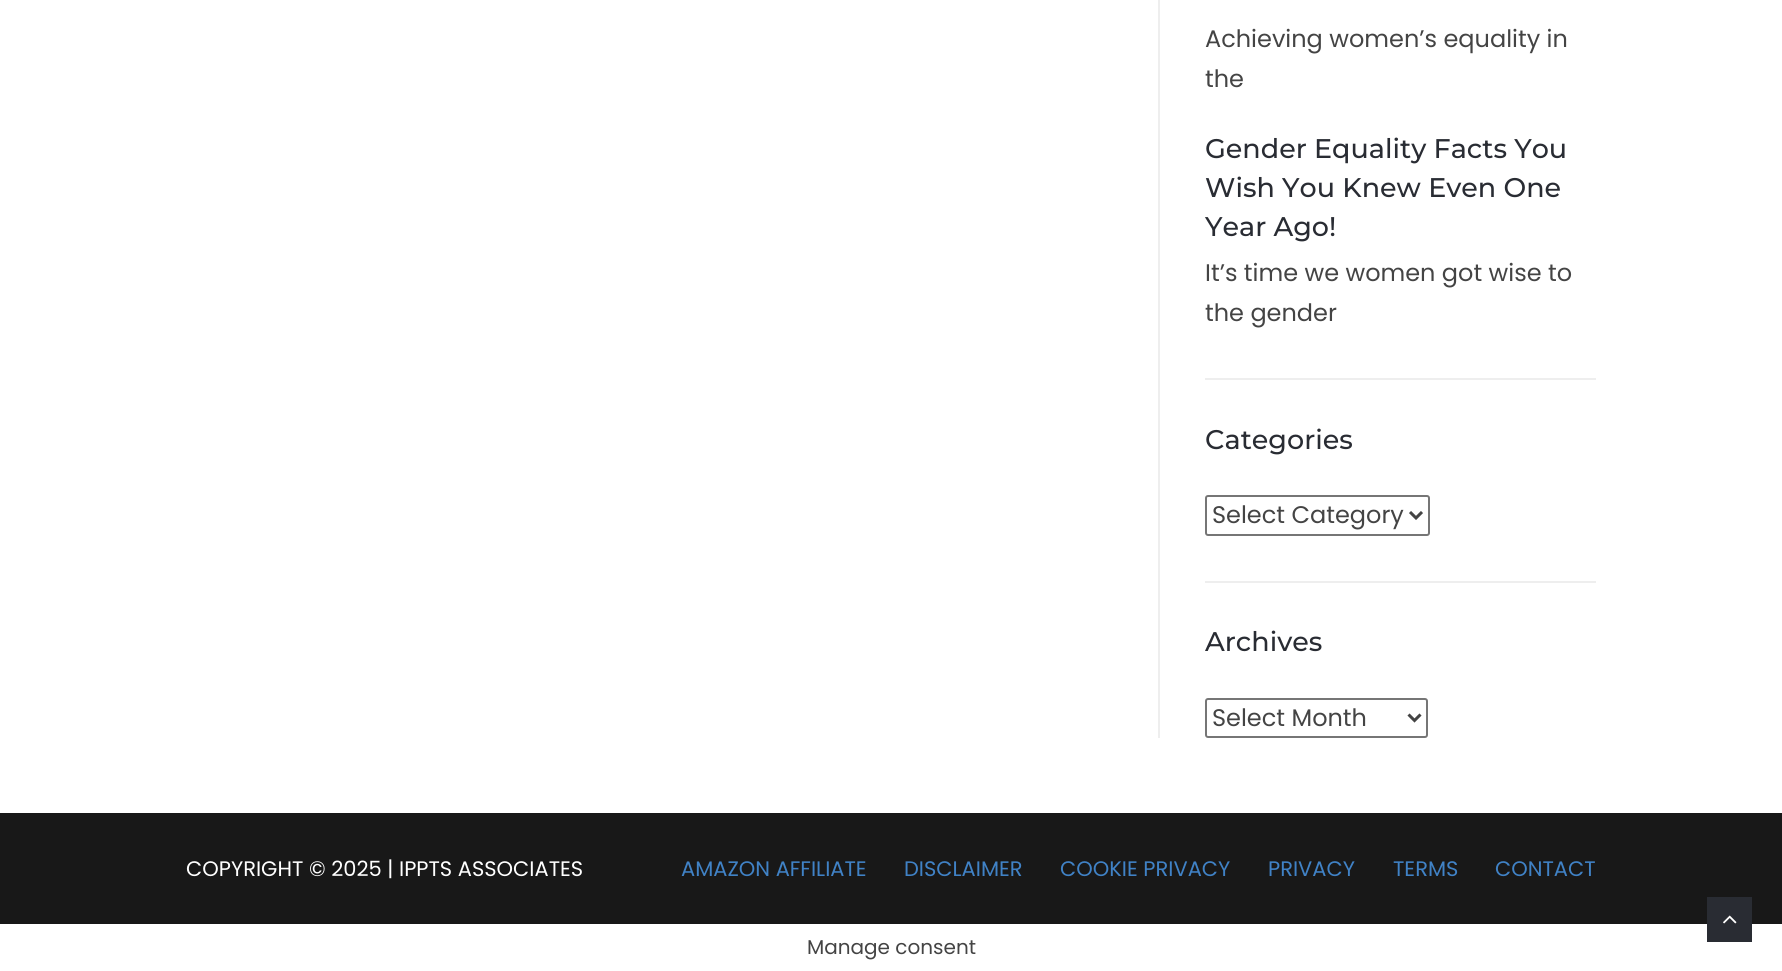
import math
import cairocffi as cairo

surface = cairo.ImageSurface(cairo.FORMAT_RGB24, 1782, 971)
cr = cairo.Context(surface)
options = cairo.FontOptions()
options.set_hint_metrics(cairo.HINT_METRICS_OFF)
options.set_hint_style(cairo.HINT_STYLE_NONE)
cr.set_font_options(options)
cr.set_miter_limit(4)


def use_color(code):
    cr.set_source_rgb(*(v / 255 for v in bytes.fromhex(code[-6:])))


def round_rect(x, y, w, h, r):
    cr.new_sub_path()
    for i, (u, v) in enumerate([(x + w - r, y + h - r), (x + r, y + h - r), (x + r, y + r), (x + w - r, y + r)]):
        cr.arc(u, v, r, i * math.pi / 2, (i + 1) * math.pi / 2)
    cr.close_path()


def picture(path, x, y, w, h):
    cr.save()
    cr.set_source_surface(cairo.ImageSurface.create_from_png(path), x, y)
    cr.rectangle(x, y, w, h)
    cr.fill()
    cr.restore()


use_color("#ffffff")
cr.paint()
use_color("#eeeeee")
cr.rectangle(1158, 0, 2, 738)
cr.fill()
cr.select_font_face("Poppins")
cr.set_font_size(24)
use_color("#444444")
cr.move_to(1205, 47)
cr.show_text("Achieving women’s equality in")
cr.move_to(1205, 87)
cr.show_text("the")
cr.select_font_face("Montserrat Thin")
cr.set_font_size(27)
use_color("#292c33")
cr.move_to(1205, 158)
cr.show_text("Gender Equality Facts You")
cr.move_to(1205, 197)
cr.show_text("Wish You Knew Even One")
cr.move_to(1205, 236)
cr.show_text("Year Ago!")
cr.select_font_face("Poppins")
cr.set_font_size(24)
use_color("#444444")
cr.move_to(1205, 281)
cr.show_text("It’s time we women got wise to")
cr.move_to(1205, 321)
cr.show_text("the gender")
use_color("#eeeeee")
cr.rectangle(1205, 378, 391, 2)
cr.fill()
cr.select_font_face("Montserrat Thin")
cr.set_font_size(27)
use_color("#292c33")
cr.move_to(1205, 449)
cr.show_text("Categories")
round_rect(1206, 496, 223, 39, 2)
use_color("#767676")
cr.stroke()
cr.new_path()
cr.move_to(1410, 512)
cr.line_to(1416, 518)
cr.line_to(1422, 512)
use_color("#444444")
cr.set_line_width(3)
cr.stroke()
cr.select_font_face("Poppins")
cr.set_font_size(24)
cr.move_to(1212, 523)
cr.show_text("Select Category")
use_color("#eeeeee")
cr.rectangle(1205, 581, 391, 2)
cr.fill()
cr.select_font_face("Montserrat Thin")
cr.set_font_size(27)
use_color("#292c33")
cr.move_to(1205, 651)
cr.show_text("Archives")
round_rect(1206, 699, 221, 38, 2)
use_color("#767676")
cr.set_line_width(2)
cr.stroke()
cr.new_path()
cr.move_to(1408.5, 714.5)
cr.line_to(1414.5, 720.5)
cr.line_to(1420.5, 714.5)
use_color("#444444")
cr.set_line_width(3)
cr.stroke()
cr.select_font_face("Poppins")
cr.set_font_size(24)
cr.move_to(1212, 726)
cr.show_text("Select Month")
use_color("#181818")
cr.rectangle(0, 813, 1782, 111)
cr.fill()
cr.set_font_size(21)
use_color("#ffffff")
cr.move_to(186, 876)
cr.show_text("COPYRIGHT © 2025 | IPPTS ASSOCIATES")
use_color("#4082c6")
cr.move_to(681, 876)
cr.show_text("AMAZON AFFILIATE")
cr.move_to(904, 876)
cr.show_text("DISCLAIMER")
cr.move_to(1060, 876)
cr.show_text("COOKIE PRIVACY")
cr.move_to(1268, 876)
cr.show_text("PRIVACY")
cr.move_to(1393, 876)
cr.show_text("TERMS")
cr.move_to(1495, 876)
cr.show_text("CONTACT")
use_color("#292c33")
cr.rectangle(1707, 897, 45, 45)
cr.fill()
picture("img1.png", 1723, 915, 14, 9)
cr.set_font_size(20)
use_color("#444444")
cr.move_to(807, 954)
cr.show_text("Manage consent")
surface.write_to_png("result.png")
